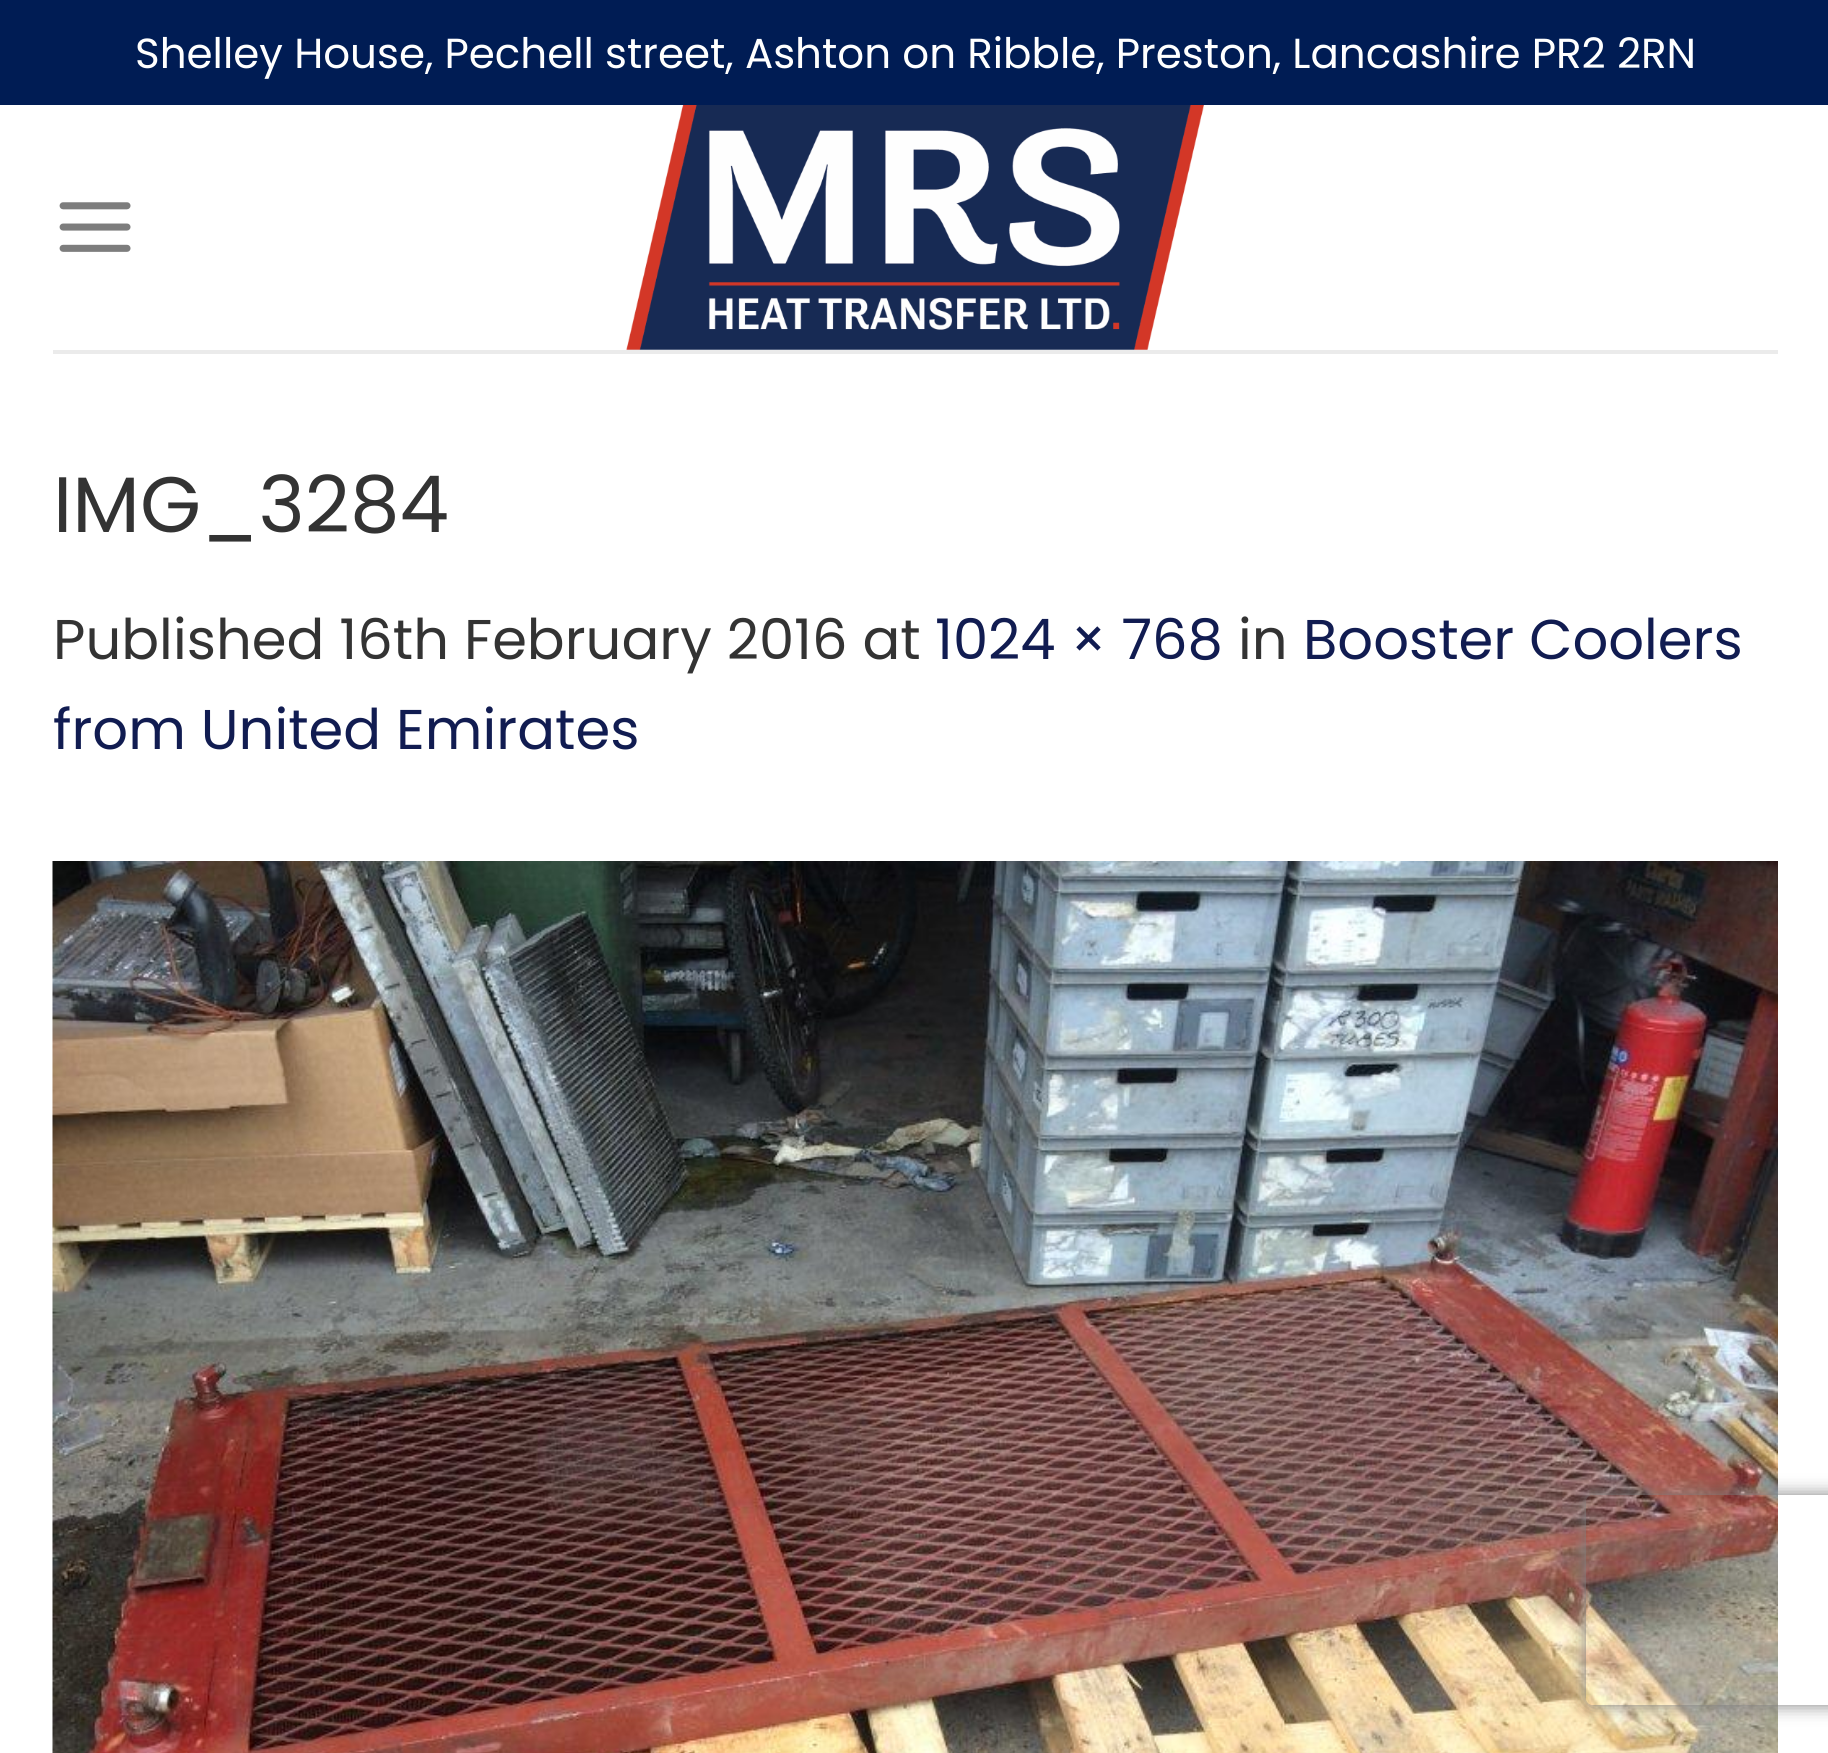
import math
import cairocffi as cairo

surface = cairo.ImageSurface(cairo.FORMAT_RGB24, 1828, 1753)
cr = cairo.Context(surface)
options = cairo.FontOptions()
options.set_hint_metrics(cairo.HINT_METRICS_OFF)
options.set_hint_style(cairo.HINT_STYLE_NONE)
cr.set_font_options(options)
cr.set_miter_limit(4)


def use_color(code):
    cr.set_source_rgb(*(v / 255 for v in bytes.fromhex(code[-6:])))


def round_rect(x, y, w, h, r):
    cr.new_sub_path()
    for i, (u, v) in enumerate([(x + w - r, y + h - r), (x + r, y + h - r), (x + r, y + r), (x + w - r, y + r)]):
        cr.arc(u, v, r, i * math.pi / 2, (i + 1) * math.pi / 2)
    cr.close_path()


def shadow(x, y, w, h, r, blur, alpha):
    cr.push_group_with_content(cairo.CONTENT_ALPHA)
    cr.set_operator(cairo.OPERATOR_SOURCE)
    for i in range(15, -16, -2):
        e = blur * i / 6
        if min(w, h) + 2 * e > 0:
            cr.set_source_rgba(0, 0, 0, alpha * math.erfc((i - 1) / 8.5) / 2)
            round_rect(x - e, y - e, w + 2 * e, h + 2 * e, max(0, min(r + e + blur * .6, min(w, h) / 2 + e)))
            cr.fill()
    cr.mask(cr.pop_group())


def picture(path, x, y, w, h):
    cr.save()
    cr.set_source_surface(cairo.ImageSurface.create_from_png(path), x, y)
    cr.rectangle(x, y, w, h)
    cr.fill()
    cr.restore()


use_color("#ffffff")
cr.paint()
use_color("#001c54")
cr.rectangle(0, 0, 1828, 105)
cr.fill()
cr.select_font_face("Poppins")
cr.set_font_size(42)
use_color("#ffffff")
cr.move_to(135, 68)
cr.show_text("Shelley House, Pechell street, Ashton on Ribble, Preston, Lancashire PR2 2RN")
picture("img1.png", 59, 202, 72, 50)
picture("img2.png", 626, 105, 578, 245)
use_color("#ebebeb")
cr.rectangle(53, 350, 1725, 4)
cr.fill()
cr.set_font_size(78.5)
use_color("#333333")
cr.move_to(53, 532)
cr.show_text("IMG_3284")
cr.set_font_size(56)
cr.move_to(53, 659)
cr.show_text("Published 16th February 2016 at")
use_color("#111c51")
cr.move_to(935, 659)
cr.show_text("1024 × 768")
use_color("#333333")
cr.move_to(1238, 659)
cr.show_text("in")
use_color("#111c51")
cr.move_to(1303, 659)
cr.show_text("Booster Coolers")
cr.move_to(53, 749)
cr.show_text("from United Emirates")
picture("img3.png", 52, 861, 1726, 892)
cr.save()
cr.set_fill_rule(cairo.FILL_RULE_EVEN_ODD)
cr.new_path()
cr.move_to(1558, 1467)
cr.line_to(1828, 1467)
cr.line_to(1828, 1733)
cr.line_to(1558, 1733)
cr.close_path()
cr.move_to(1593, 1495)
cr.line_to(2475, 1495)
cr.curve_to(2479, 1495, 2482, 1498, 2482, 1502)
cr.line_to(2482, 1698)
cr.curve_to(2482, 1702, 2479, 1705, 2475, 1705)
cr.line_to(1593, 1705)
cr.curve_to(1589, 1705, 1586, 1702, 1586, 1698)
cr.line_to(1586, 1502)
cr.curve_to(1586, 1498, 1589, 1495, 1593, 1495)
cr.close_path()
cr.clip()
use_color("#808080")
shadow(1586, 1495, 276, 210, 7, 9, 1)
cr.restore()
surface.write_to_png("result.png")
